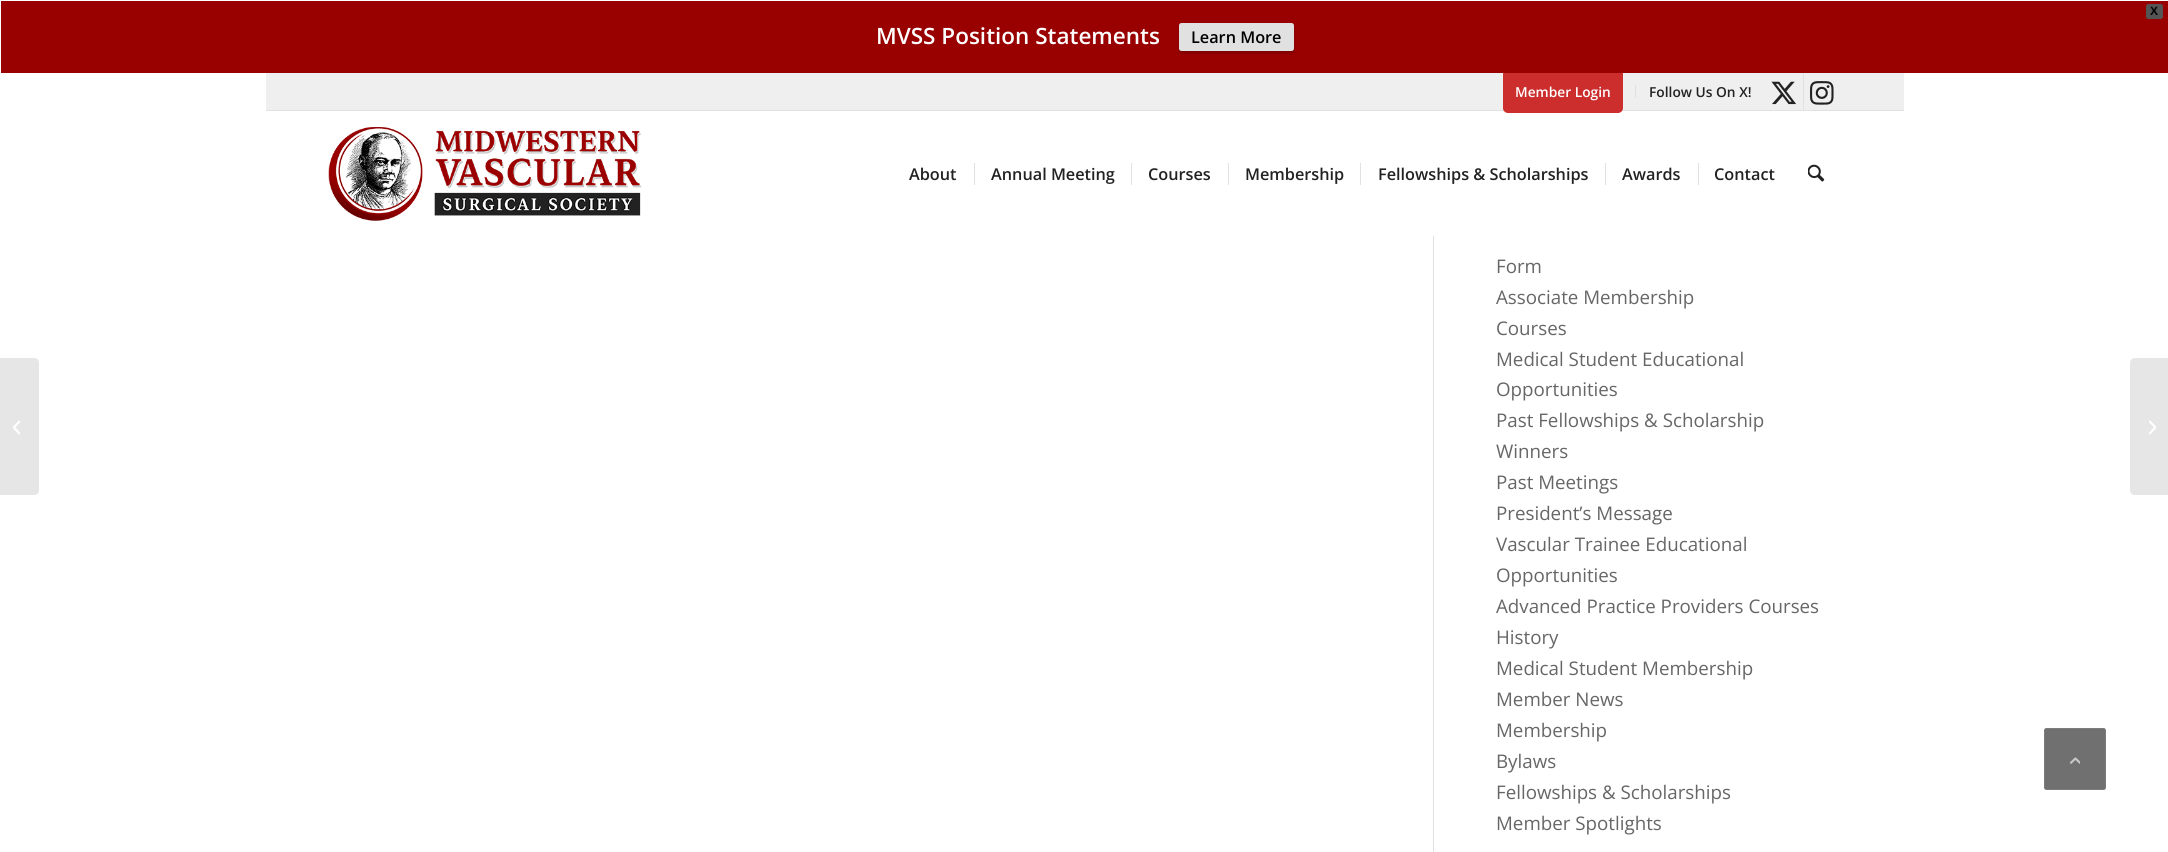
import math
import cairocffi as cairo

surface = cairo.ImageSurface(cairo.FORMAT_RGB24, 2168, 852)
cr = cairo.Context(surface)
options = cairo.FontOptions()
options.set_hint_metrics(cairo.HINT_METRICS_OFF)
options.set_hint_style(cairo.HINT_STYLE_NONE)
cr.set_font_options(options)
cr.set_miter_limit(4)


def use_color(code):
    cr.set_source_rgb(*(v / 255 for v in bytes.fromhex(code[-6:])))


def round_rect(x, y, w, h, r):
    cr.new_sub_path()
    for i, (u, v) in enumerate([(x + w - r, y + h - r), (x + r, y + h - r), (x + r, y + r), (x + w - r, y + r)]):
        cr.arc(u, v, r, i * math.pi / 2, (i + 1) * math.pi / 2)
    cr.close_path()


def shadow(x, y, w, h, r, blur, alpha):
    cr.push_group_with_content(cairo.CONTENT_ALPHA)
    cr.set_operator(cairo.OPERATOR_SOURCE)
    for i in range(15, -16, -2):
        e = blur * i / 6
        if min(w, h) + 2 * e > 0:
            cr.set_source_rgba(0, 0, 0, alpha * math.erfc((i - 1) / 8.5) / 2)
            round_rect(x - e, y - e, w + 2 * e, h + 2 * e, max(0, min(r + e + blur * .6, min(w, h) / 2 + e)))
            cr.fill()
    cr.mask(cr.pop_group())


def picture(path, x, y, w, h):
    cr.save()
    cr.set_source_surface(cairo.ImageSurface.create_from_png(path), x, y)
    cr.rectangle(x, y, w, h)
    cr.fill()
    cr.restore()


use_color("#ffffff")
cr.paint()
use_color("#efefef")
cr.rectangle(266, 73, 1638, 37)
cr.fill()
use_color("#e1e1e1")
cr.rectangle(266, 110, 1638, 1)
cr.fill()
use_color("#cc2d2d")
round_rect(1503, 69, 120, 44, 5)
cr.fill()
use_color("#990000")
cr.rectangle(1, 1, 2167, 72)
cr.fill()
use_color("#555555")
round_rect(2146.5, 4.5, 16, 14, 2)
cr.fill_preserve()
cr.set_line_width(1)
cr.stroke()
cr.select_font_face("Liberation Sans", cairo.FONT_SLANT_NORMAL, cairo.FONT_WEIGHT_BOLD)
cr.set_font_size(12)
use_color("#000000")
cr.move_to(2150, 15)
cr.show_text("X")
cr.select_font_face("Open Sans SemiBold")
cr.set_font_size(22.5)
use_color("#ffffff")
cr.move_to(876, 44)
cr.show_text("MVSS Position Statements")
use_color("#000000")
shadow(1179, 24, 115, 29, 2.5, 1, 0.2)
use_color("#e1e1e1")
round_rect(1179, 23, 115, 28, 2.5)
cr.fill()
cr.set_font_size(16.25)
use_color("#000000")
cr.move_to(1191, 43)
cr.show_text("Learn More")
use_color("#e1e1e1")
cr.rectangle(1635, 85, 1, 13)
cr.fill()
cr.set_font_size(13.75)
use_color("#ffffff")
cr.move_to(1515, 97)
cr.show_text("Member Login")
use_color("#222222")
cr.move_to(1649, 97)
cr.show_text("Follow Us On X!")
use_color("#e1e1e1")
cr.rectangle(1803, 73, 1, 37)
cr.fill()
picture("img1.png", 1771, 81, 25, 24)
picture("img2.png", 1810, 81, 24, 24)
cr.rectangle(1433, 111, 1, 741)
cr.fill()
cr.set_source_rgba(1, 1, 1, 0.95)
cr.rectangle(1433, 111, 1, 125)
cr.fill()
picture("img3.png", 328, 127, 314, 94)
cr.set_font_size(16.25)
use_color("#222222")
cr.move_to(909, 180)
cr.show_text("About")
cr.move_to(991, 180)
cr.show_text("Annual Meeting")
use_color("#e1e1e1")
cr.rectangle(974, 163, 1, 22)
cr.fill()
use_color("#222222")
cr.move_to(1148, 180)
cr.show_text("Courses")
use_color("#e1e1e1")
cr.rectangle(1131, 163, 1, 22)
cr.fill()
use_color("#222222")
cr.move_to(1245, 180)
cr.show_text("Membership")
use_color("#e1e1e1")
cr.rectangle(1228, 163, 1, 22)
cr.fill()
use_color("#222222")
cr.move_to(1378, 180)
cr.show_text("Fellowships & Scholarships")
use_color("#e1e1e1")
cr.rectangle(1360, 163, 1, 22)
cr.fill()
use_color("#222222")
cr.move_to(1622, 180)
cr.show_text("Awards")
use_color("#e1e1e1")
cr.rectangle(1605, 163, 1, 22)
cr.fill()
use_color("#222222")
cr.move_to(1714, 180)
cr.show_text("Contact")
use_color("#e1e1e1")
cr.rectangle(1698, 163, 1, 22)
cr.fill()
picture("img4.png", 1808, 164, 17, 18)
use_color("#e6e6e6")
cr.new_path()
cr.move_to(0, 358)
cr.line_to(34, 358)
cr.curve_to(37, 358, 39, 360, 39, 363)
cr.line_to(39, 490)
cr.curve_to(39, 493, 37, 495, 34, 495)
cr.line_to(0, 495)
cr.close_path()
cr.fill()
picture("img5.png", 13, 420, 7, 15)
cr.select_font_face("Open Sans")
cr.set_font_size(18.75)
use_color("#666666")
cr.move_to(1496, 273)
cr.show_text("Form")
cr.move_to(1496, 304)
cr.show_text("Associate Membership")
cr.move_to(1496, 335)
cr.show_text("Courses")
cr.move_to(1496, 366)
cr.show_text("Medical Student Educational")
cr.move_to(1496, 396)
cr.show_text("Opportunities")
cr.move_to(1496, 427)
cr.show_text("Past Fellowships & Scholarship")
cr.move_to(1496, 458)
cr.show_text("Winners")
cr.move_to(1496, 489)
cr.show_text("Past Meetings")
cr.move_to(1496, 520)
cr.show_text("President’s Message")
cr.move_to(1496, 551)
cr.show_text("Vascular Trainee Educational")
cr.move_to(1496, 582)
cr.show_text("Opportunities")
cr.move_to(1496, 613)
cr.show_text("Advanced Practice Providers Courses")
cr.move_to(1496, 644)
cr.show_text("History")
cr.move_to(1496, 675)
cr.show_text("Medical Student Membership")
cr.move_to(1496, 706)
cr.show_text("Member News")
cr.move_to(1496, 737)
cr.show_text("Membership")
cr.move_to(1496, 768)
cr.show_text("Bylaws")
cr.move_to(1496, 799)
cr.show_text("Fellowships & Scholarships")
cr.move_to(1496, 830)
cr.show_text("Member Spotlights")
use_color("#e6e6e6")
cr.new_path()
cr.move_to(2135, 358)
cr.line_to(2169, 358)
cr.line_to(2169, 495)
cr.line_to(2135, 495)
cr.curve_to(2132, 495, 2130, 493, 2130, 490)
cr.line_to(2130, 363)
cr.curve_to(2130, 360, 2132, 358, 2135, 358)
cr.close_path()
cr.fill()
picture("img6.png", 2149, 420, 7, 15)
use_color("#707070")
round_rect(2044.5, 728.5, 61, 61, 2)
cr.fill_preserve()
use_color("#7c7c7c")
cr.stroke()
picture("img7.png", 2070, 757, 10, 7)
surface.write_to_png("result.png")
